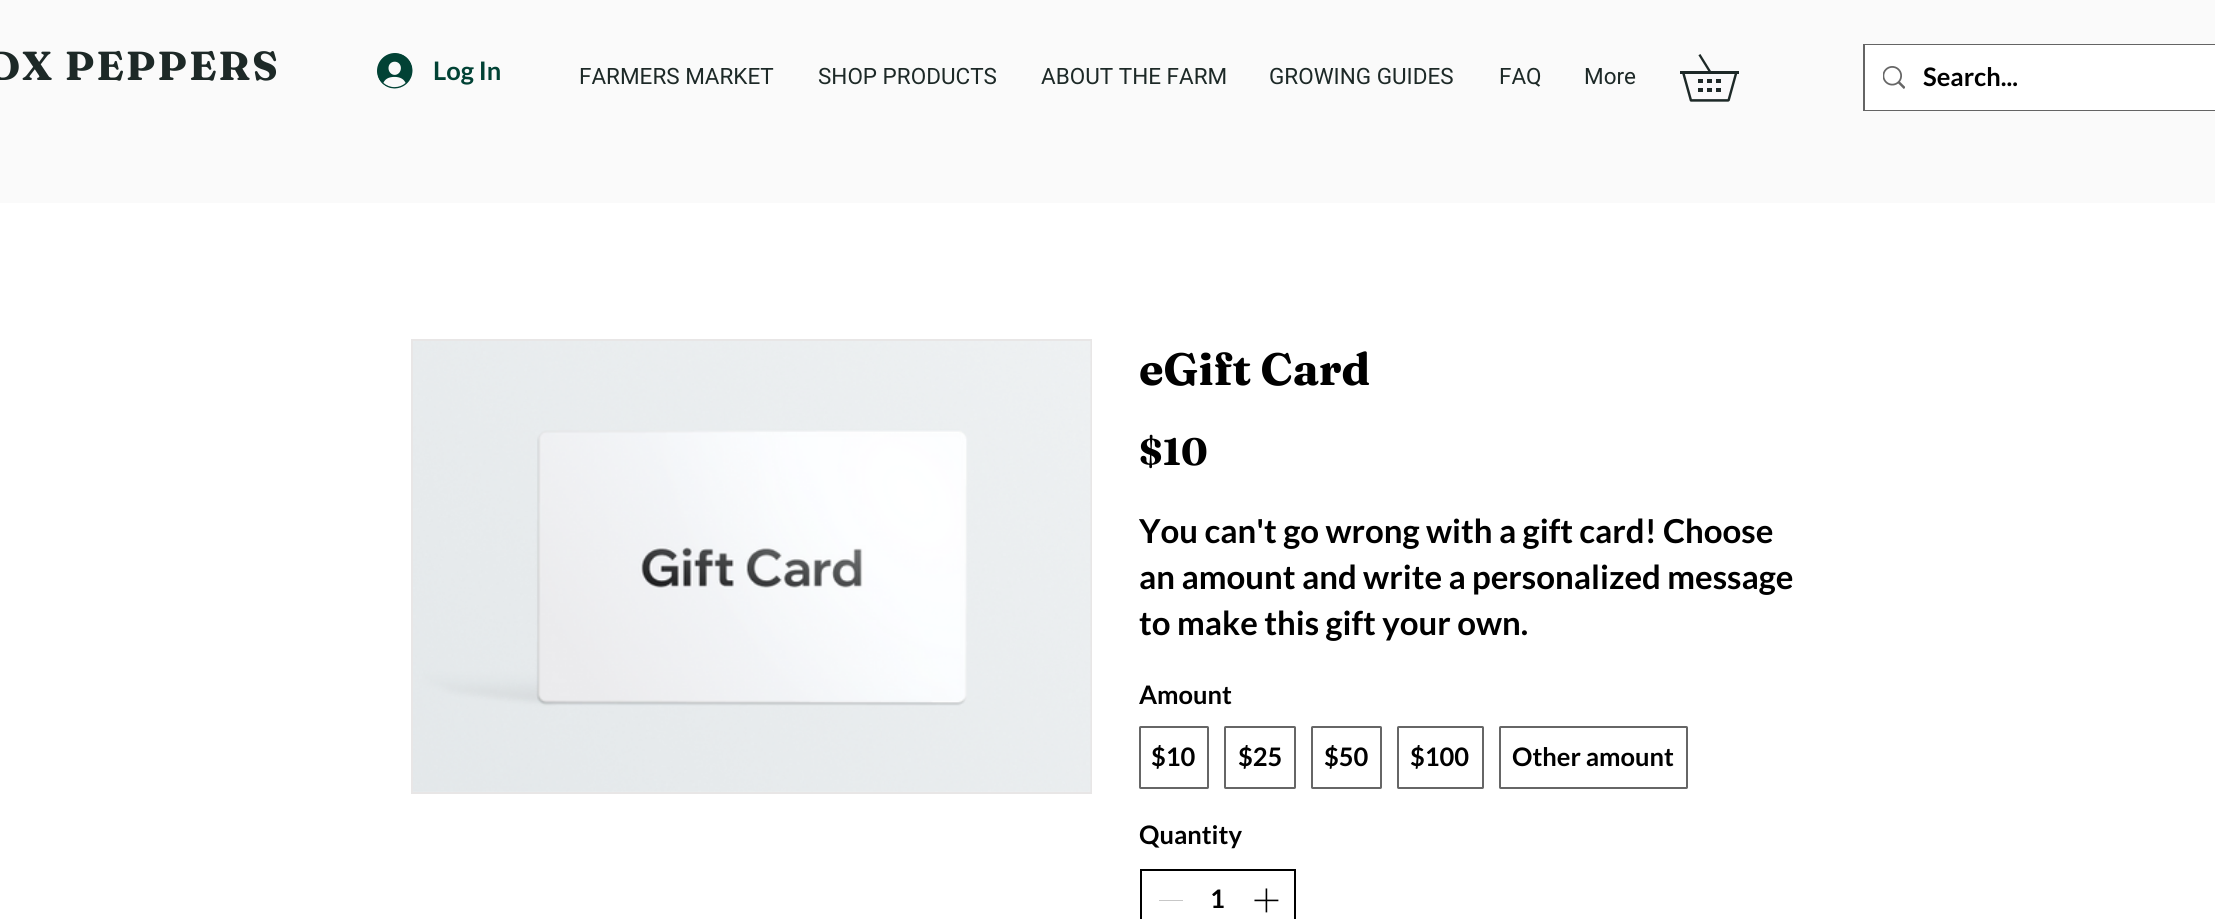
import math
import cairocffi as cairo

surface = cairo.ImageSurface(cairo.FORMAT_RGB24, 2215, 919)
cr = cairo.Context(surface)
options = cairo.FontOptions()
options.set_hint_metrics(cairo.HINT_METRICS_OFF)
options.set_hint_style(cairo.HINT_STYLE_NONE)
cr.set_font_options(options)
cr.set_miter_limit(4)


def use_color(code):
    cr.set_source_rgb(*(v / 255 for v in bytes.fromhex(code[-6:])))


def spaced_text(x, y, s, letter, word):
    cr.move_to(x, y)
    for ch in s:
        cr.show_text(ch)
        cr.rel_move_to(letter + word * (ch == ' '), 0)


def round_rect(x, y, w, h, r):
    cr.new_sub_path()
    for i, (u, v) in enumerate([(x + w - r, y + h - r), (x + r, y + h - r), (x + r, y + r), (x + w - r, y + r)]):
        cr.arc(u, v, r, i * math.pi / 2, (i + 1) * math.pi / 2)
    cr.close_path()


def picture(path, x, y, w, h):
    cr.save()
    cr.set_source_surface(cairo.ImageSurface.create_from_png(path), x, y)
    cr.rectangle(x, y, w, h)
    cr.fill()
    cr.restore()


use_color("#ffffff")
cr.paint()
use_color("#fafafa")
cr.rectangle(0, 0, 2215, 203)
cr.fill()
cr.select_font_face("Fraunces", cairo.FONT_SLANT_NORMAL, cairo.FONT_WEIGHT_BOLD)
cr.set_font_size(40.5)
use_color("#1d2927")
spaced_text(-13, 80, "DX PEPPERS", 2, 0)
picture("img1.png", 377, 53, 36, 36)
cr.select_font_face("Lato", cairo.FONT_SLANT_NORMAL, cairo.FONT_WEIGHT_BOLD)
cr.set_font_size(25.5)
use_color("#014235")
cr.move_to(433, 80)
cr.show_text("Log In")
picture("img2.png", 1680, 54, 59, 48)
cr.rectangle(1864, 45, 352, 65)
use_color("#646464")
cr.stroke()
use_color("#ffffff")
cr.rectangle(1865, 45, 350, 65)
cr.fill()
picture("img3.png", 1883, 66, 22, 23)
use_color("#000000")
cr.move_to(1923, 86)
cr.show_text("Search...")
cr.select_font_face("Roboto")
cr.set_font_size(22.5)
use_color("#1d2927")
cr.move_to(579, 84)
cr.show_text("FARMERS MARKET")
cr.move_to(818, 84)
cr.show_text("SHOP PRODUCTS")
cr.move_to(1041, 84)
cr.show_text("ABOUT THE FARM")
cr.move_to(1269, 84)
cr.show_text("GROWING GUIDES")
cr.move_to(1499, 84)
cr.show_text("FAQ")
cr.move_to(1584, 84)
cr.show_text("More")
cr.rectangle(412, 340, 679, 453)
use_color("#e8e6e6")
cr.stroke()
picture("img4.png", 413, 341, 678, 451)
cr.select_font_face("Fraunces", cairo.FONT_SLANT_NORMAL, cairo.FONT_WEIGHT_BOLD)
cr.set_font_size(45)
use_color("#000000")
cr.move_to(1139, 385)
cr.show_text("eGift Card")
cr.set_font_size(38)
cr.move_to(1139, 465)
cr.show_text("$10")
cr.select_font_face("Lato", cairo.FONT_SLANT_NORMAL, cairo.FONT_WEIGHT_BOLD)
cr.set_font_size(33)
cr.move_to(1139, 543)
cr.show_text("You can't go wrong with a gift card! Choose")
cr.move_to(1139, 589)
cr.show_text("an amount and write a personalized message")
cr.move_to(1139, 635)
cr.show_text("to make this gift your own.")
cr.set_font_size(25.5)
cr.move_to(1139, 704)
cr.show_text("Amount")
round_rect(1140, 727, 68, 61, 0.5)
use_color("#666666")
cr.stroke()
use_color("#000000")
cr.move_to(1151, 766)
cr.show_text("$10")
round_rect(1225, 727, 70, 61, 0.5)
use_color("#666666")
cr.stroke()
use_color("#000000")
cr.move_to(1238, 766)
cr.show_text("$25")
round_rect(1312, 727, 69, 61, 0.5)
use_color("#666666")
cr.stroke()
use_color("#000000")
cr.move_to(1324, 766)
cr.show_text("$50")
round_rect(1398, 727, 85, 61, 0.5)
use_color("#666666")
cr.stroke()
use_color("#000000")
cr.move_to(1410, 766)
cr.show_text("$100")
round_rect(1500, 727, 187, 61, 0.5)
use_color("#666666")
cr.stroke()
use_color("#000000")
cr.move_to(1512, 766)
cr.show_text("Other amount")
cr.move_to(1139, 844)
cr.show_text("Quantity")
cr.rectangle(1141, 870, 154, 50)
cr.stroke()
use_color("#c7c7c7")
cr.rectangle(1159, 900, 24, 1)
cr.fill()
use_color("#000000")
cr.move_to(1210, 908)
cr.show_text("1")
picture("img5.png", 1254, 888, 25, 25)
surface.write_to_png("result.png")
